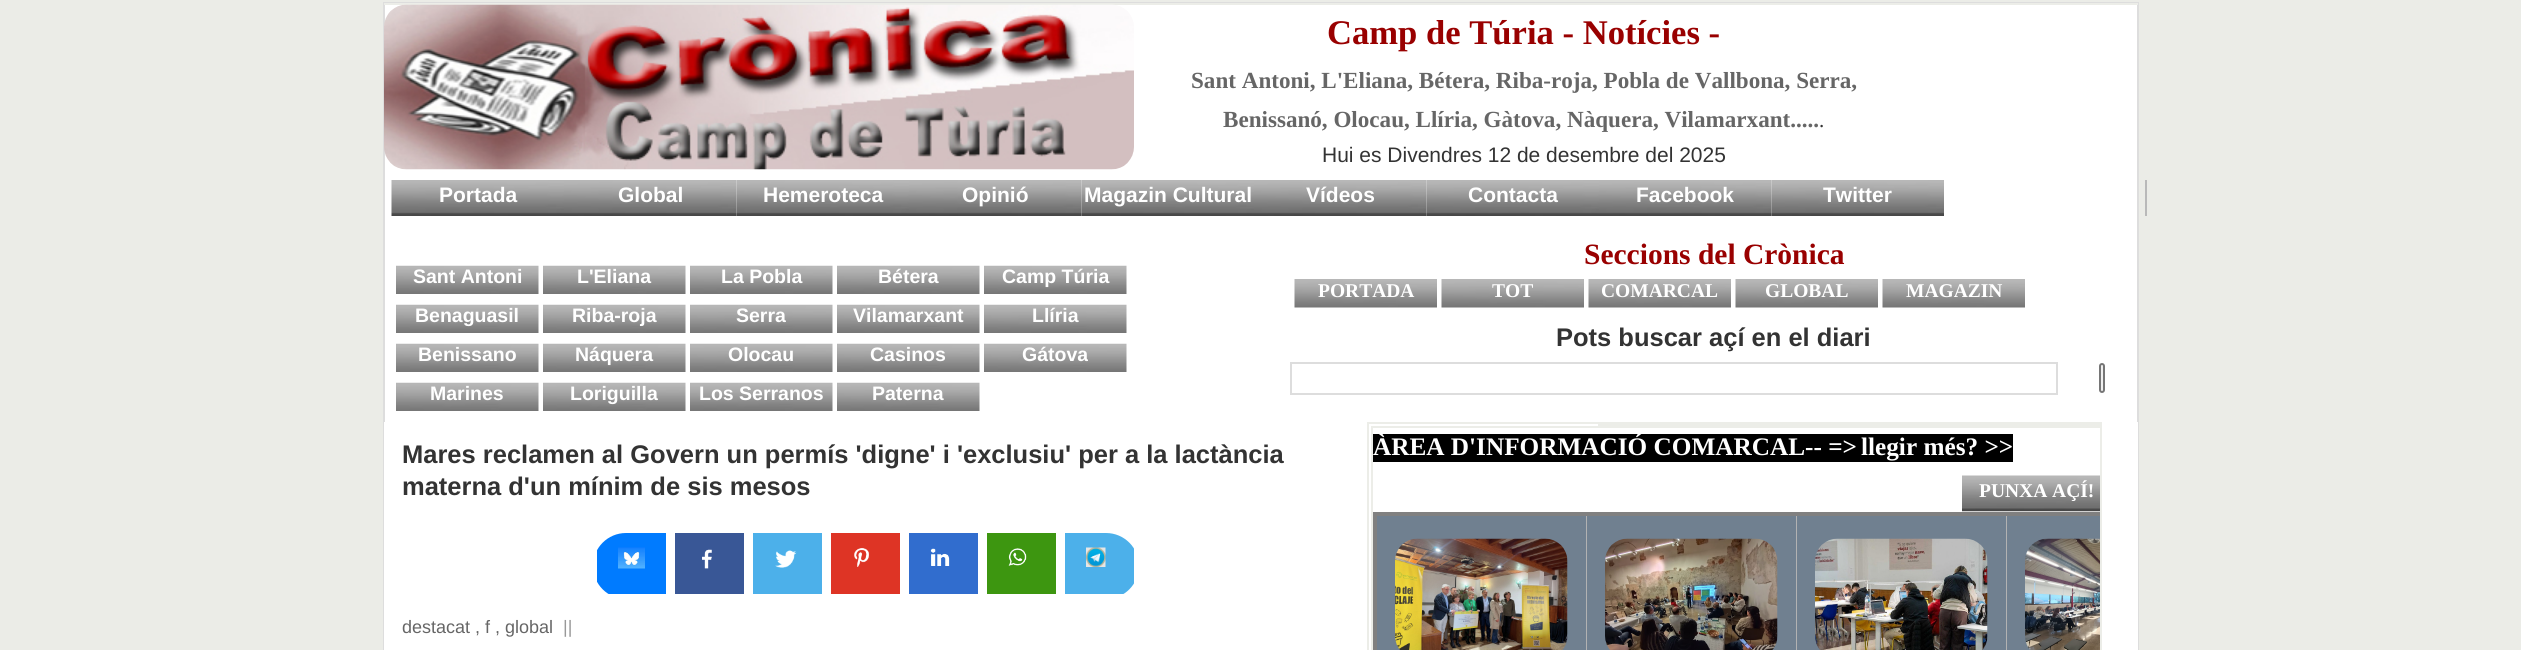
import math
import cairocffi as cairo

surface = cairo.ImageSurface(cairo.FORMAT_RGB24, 2521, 650)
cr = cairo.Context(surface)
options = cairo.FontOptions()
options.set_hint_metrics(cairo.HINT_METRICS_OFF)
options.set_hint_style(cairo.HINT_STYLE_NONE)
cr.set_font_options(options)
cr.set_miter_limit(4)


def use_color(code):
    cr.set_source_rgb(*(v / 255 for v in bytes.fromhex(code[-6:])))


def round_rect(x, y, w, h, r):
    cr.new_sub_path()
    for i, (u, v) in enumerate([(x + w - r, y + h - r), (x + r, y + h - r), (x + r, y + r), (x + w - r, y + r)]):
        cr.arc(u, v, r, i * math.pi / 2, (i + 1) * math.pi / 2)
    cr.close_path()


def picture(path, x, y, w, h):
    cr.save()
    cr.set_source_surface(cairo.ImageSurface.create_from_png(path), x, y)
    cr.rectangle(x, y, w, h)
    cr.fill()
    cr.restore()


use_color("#ebece7")
cr.paint()
use_color("#ffffff")
cr.rectangle(385, 5, 1752, 417)
cr.fill()
cr.rectangle(384, 3, 1754, 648)
use_color("#dddddd")
cr.stroke()
use_color("#ecede8")
cr.rectangle(384, 3, 1754, 2)
cr.fill()
picture("img1.png", 384, 4, 750, 166)
cr.select_font_face("Liberation Serif", cairo.FONT_SLANT_NORMAL, cairo.FONT_WEIGHT_BOLD)
cr.set_font_size(34.6)
use_color("#990000")
cr.move_to(1327, 44)
cr.show_text("Camp de Túria - Notícies -")
cr.set_font_size(23.1)
use_color("#666666")
cr.move_to(1191, 88)
cr.show_text("Sant Antoni, L'Eliana, Bétera, Riba-roja, Pobla de Vallbona, Serra,")
cr.move_to(1223, 127)
cr.show_text("Benissanó, Olocau, Llíria, Gàtova, Nàquera, Vilamarxant.....")
cr.select_font_face("Liberation Serif")
cr.set_font_size(21)
use_color("#333333")
cr.move_to(1819, 127)
cr.show_text(".")
cr.select_font_face("Liberation Sans")
cr.move_to(1322, 162)
cr.show_text("Hui es Divendres 12 de desembre del 2025")
use_color("#b9b9b9")
cr.rectangle(2145, 180, 2, 36)
cr.fill()
picture("img2.png", 391, 180, 173, 36)
cr.select_font_face("Liberation Sans", cairo.FONT_SLANT_NORMAL, cairo.FONT_WEIGHT_BOLD)
use_color("#ffffff")
cr.move_to(439, 202)
cr.show_text("Portada")
picture("img3.png", 564, 180, 173, 36)
cr.move_to(618, 202)
cr.show_text("Global")
picture("img4.png", 736, 180, 173, 36)
cr.move_to(763, 202)
cr.show_text("Hemeroteca")
picture("img5.png", 909, 180, 173, 36)
cr.move_to(962, 202)
cr.show_text("Opinió")
picture("img6.png", 1081, 180, 173, 36)
cr.move_to(1084, 202)
cr.show_text("Magazin Cultural")
picture("img7.png", 1254, 180, 173, 36)
cr.move_to(1306, 202)
cr.show_text("Vídeos")
picture("img8.png", 1426, 180, 173, 36)
cr.move_to(1468, 202)
cr.show_text("Contacta")
picture("img5.png", 1599, 180, 173, 36)
cr.move_to(1636, 202)
cr.show_text("Facebook")
picture("img4.png", 1771, 180, 173, 36)
cr.move_to(1823, 202)
cr.show_text("Twitter")
picture("img9.png", 396, 265, 143, 29)
cr.set_font_size(19.5)
cr.move_to(413, 283)
cr.show_text("Sant Antoni")
picture("img10.png", 543, 265, 143, 29)
cr.move_to(577, 283)
cr.show_text("L'Eliana")
picture("img11.png", 690, 265, 143, 29)
cr.move_to(721, 283)
cr.show_text("La Pobla")
picture("img10.png", 837, 265, 143, 29)
cr.move_to(878, 283)
cr.show_text("Bétera")
picture("img10.png", 984, 265, 143, 29)
cr.move_to(1002, 283)
cr.show_text("Camp Túria")
picture("img9.png", 396, 304, 143, 29)
cr.move_to(415, 322)
cr.show_text("Benaguasil")
picture("img10.png", 543, 304, 143, 29)
cr.move_to(572, 322)
cr.show_text("Riba-roja")
picture("img11.png", 690, 304, 143, 29)
cr.move_to(736, 322)
cr.show_text("Serra")
picture("img10.png", 837, 304, 143, 29)
cr.move_to(853, 322)
cr.show_text("Vilamarxant")
picture("img10.png", 984, 304, 143, 29)
cr.move_to(1032, 322)
cr.show_text("Llíria")
picture("img9.png", 396, 343, 143, 29)
cr.move_to(418, 361)
cr.show_text("Benissano")
picture("img10.png", 543, 343, 143, 29)
cr.move_to(575, 361)
cr.show_text("Náquera")
picture("img11.png", 690, 343, 143, 29)
cr.move_to(728, 361)
cr.show_text("Olocau")
picture("img10.png", 837, 343, 143, 29)
cr.move_to(870, 361)
cr.show_text("Casinos")
picture("img10.png", 984, 343, 143, 29)
cr.move_to(1022, 361)
cr.show_text("Gátova")
picture("img9.png", 396, 382, 143, 29)
cr.move_to(430, 400)
cr.show_text("Marines")
picture("img10.png", 543, 382, 143, 29)
cr.move_to(570, 400)
cr.show_text("Loriguilla")
picture("img11.png", 690, 382, 143, 29)
cr.move_to(699, 400)
cr.show_text("Los Serranos")
picture("img10.png", 837, 382, 143, 29)
cr.move_to(872, 400)
cr.show_text("Paterna")
cr.select_font_face("Liberation Serif", cairo.FONT_SLANT_NORMAL, cairo.FONT_WEIGHT_BOLD)
cr.set_font_size(29.5)
use_color("#990000")
cr.move_to(1584, 264)
cr.show_text("Seccions del Crònica")
picture("img12.png", 1294, 279, 143, 29)
cr.set_font_size(19.5)
use_color("#ffffff")
cr.move_to(1318, 297)
cr.show_text("PORTADA")
picture("img13.png", 1441, 279, 143, 29)
cr.move_to(1492, 297)
cr.show_text("TOT")
picture("img12.png", 1588, 279, 143, 29)
cr.move_to(1601, 297)
cr.show_text("COMARCAL")
picture("img12.png", 1735, 279, 143, 29)
cr.move_to(1765, 297)
cr.show_text("GLOBAL")
picture("img13.png", 1882, 279, 143, 29)
cr.move_to(1906, 297)
cr.show_text("MAGAZIN")
cr.select_font_face("Liberation Sans", cairo.FONT_SLANT_NORMAL, cairo.FONT_WEIGHT_BOLD)
cr.set_font_size(25.5)
use_color("#333333")
cr.move_to(1556, 346)
cr.show_text("Pots buscar açí en el diari")
cr.rectangle(1291, 363, 766, 31)
use_color("#dddddd")
cr.stroke()
use_color("#efefef")
round_rect(2100, 364, 4, 28, 2)
cr.fill_preserve()
use_color("#767676")
cr.stroke()
use_color("#ffffff")
cr.rectangle(384, 422, 1754, 228)
cr.fill()
use_color("#333333")
cr.move_to(402, 463)
cr.show_text("Mares reclamen al Govern un permís 'digne' i 'exclusiu' per a la lactància")
cr.move_to(402, 495)
cr.show_text("materna d'un mínim de sis mesos")
cr.save()
round_rect(593, 533, 546, 66, 33)
cr.clip()
use_color("#007bff")
cr.rectangle(597, 533, 69, 61)
cr.fill()
cr.restore()
picture("img14.png", 618, 547, 27, 22)
use_color("#395796")
cr.rectangle(675, 533, 69, 61)
cr.fill()
picture("img15.png", 702, 549, 10, 20)
use_color("#4cb0ea")
cr.rectangle(753, 533, 69, 61)
cr.fill()
picture("img16.png", 775, 550, 22, 18)
use_color("#de3425")
cr.rectangle(831, 533, 69, 61)
cr.fill()
picture("img17.png", 854, 548, 15, 19)
use_color("#316dce")
cr.rectangle(909, 533, 69, 61)
cr.fill()
picture("img18.png", 930, 548, 20, 18)
use_color("#3d9610")
cr.rectangle(987, 533, 69, 61)
cr.fill()
picture("img19.png", 1008, 548, 19, 18)
cr.save()
round_rect(593, 533, 546, 66, 33)
cr.clip()
use_color("#4cb0ea")
cr.rectangle(1065, 533, 69, 61)
cr.fill()
cr.restore()
picture("img20.png", 1086, 547, 20, 20)
cr.select_font_face("Liberation Sans")
cr.set_font_size(18)
use_color("#666666")
cr.move_to(402, 633)
cr.show_text("destacat , f , global")
use_color("#999999")
cr.move_to(563, 633)
cr.show_text("||")
cr.rectangle(1368, 423, 733, 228)
use_color("#ecede8")
cr.stroke()
cr.rectangle(1598, 424, 502, 2)
cr.fill()
cr.save()
cr.rectangle(1368, 423, 732, 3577)
cr.clip()
cr.rectangle(1372, 427, 733, 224)
cr.stroke()
cr.restore()
use_color("#000000")
cr.rectangle(1373, 434, 640, 28)
cr.fill()
cr.select_font_face("Liberation Serif", cairo.FONT_SLANT_NORMAL, cairo.FONT_WEIGHT_BOLD)
cr.set_font_size(25.25)
use_color("#ffffff")
cr.move_to(1373, 455)
cr.show_text("ÀREA D'INFORMACIÓ COMARCAL-- =>")
cr.move_to(1861, 455)
cr.show_text("llegir més? >>")
picture("img21.png", 1962, 475, 138, 37)
cr.set_font_size(19.5)
cr.move_to(1979, 497)
cr.show_text("PUNXA AÇÍ!")
cr.save()
cr.rectangle(1373, 428, 727, 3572)
cr.clip()
cr.rectangle(1375.5, 514.5, 739, 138)
use_color("#808080")
cr.set_line_width(5)
cr.stroke()
cr.restore()
use_color("#708090")
cr.rectangle(1377, 516, 209, 134)
cr.fill()
use_color("#b2b2b2")
cr.rectangle(1586, 516, 1, 134)
cr.fill()
picture("img22.png", 1395, 538, 173, 112)
use_color("#708090")
cr.rectangle(1587, 516, 209, 134)
cr.fill()
use_color("#b2b2b2")
cr.rectangle(1796, 516, 1, 134)
cr.fill()
picture("img23.png", 1605, 538, 173, 112)
use_color("#708090")
cr.rectangle(1797, 516, 209, 134)
cr.fill()
use_color("#b2b2b2")
cr.rectangle(2006, 516, 1, 134)
cr.fill()
picture("img24.png", 1815, 538, 173, 112)
use_color("#708090")
cr.rectangle(2007, 516, 93, 134)
cr.fill()
picture("img25.png", 2025, 538, 75, 112)
surface.write_to_png("result.png")
